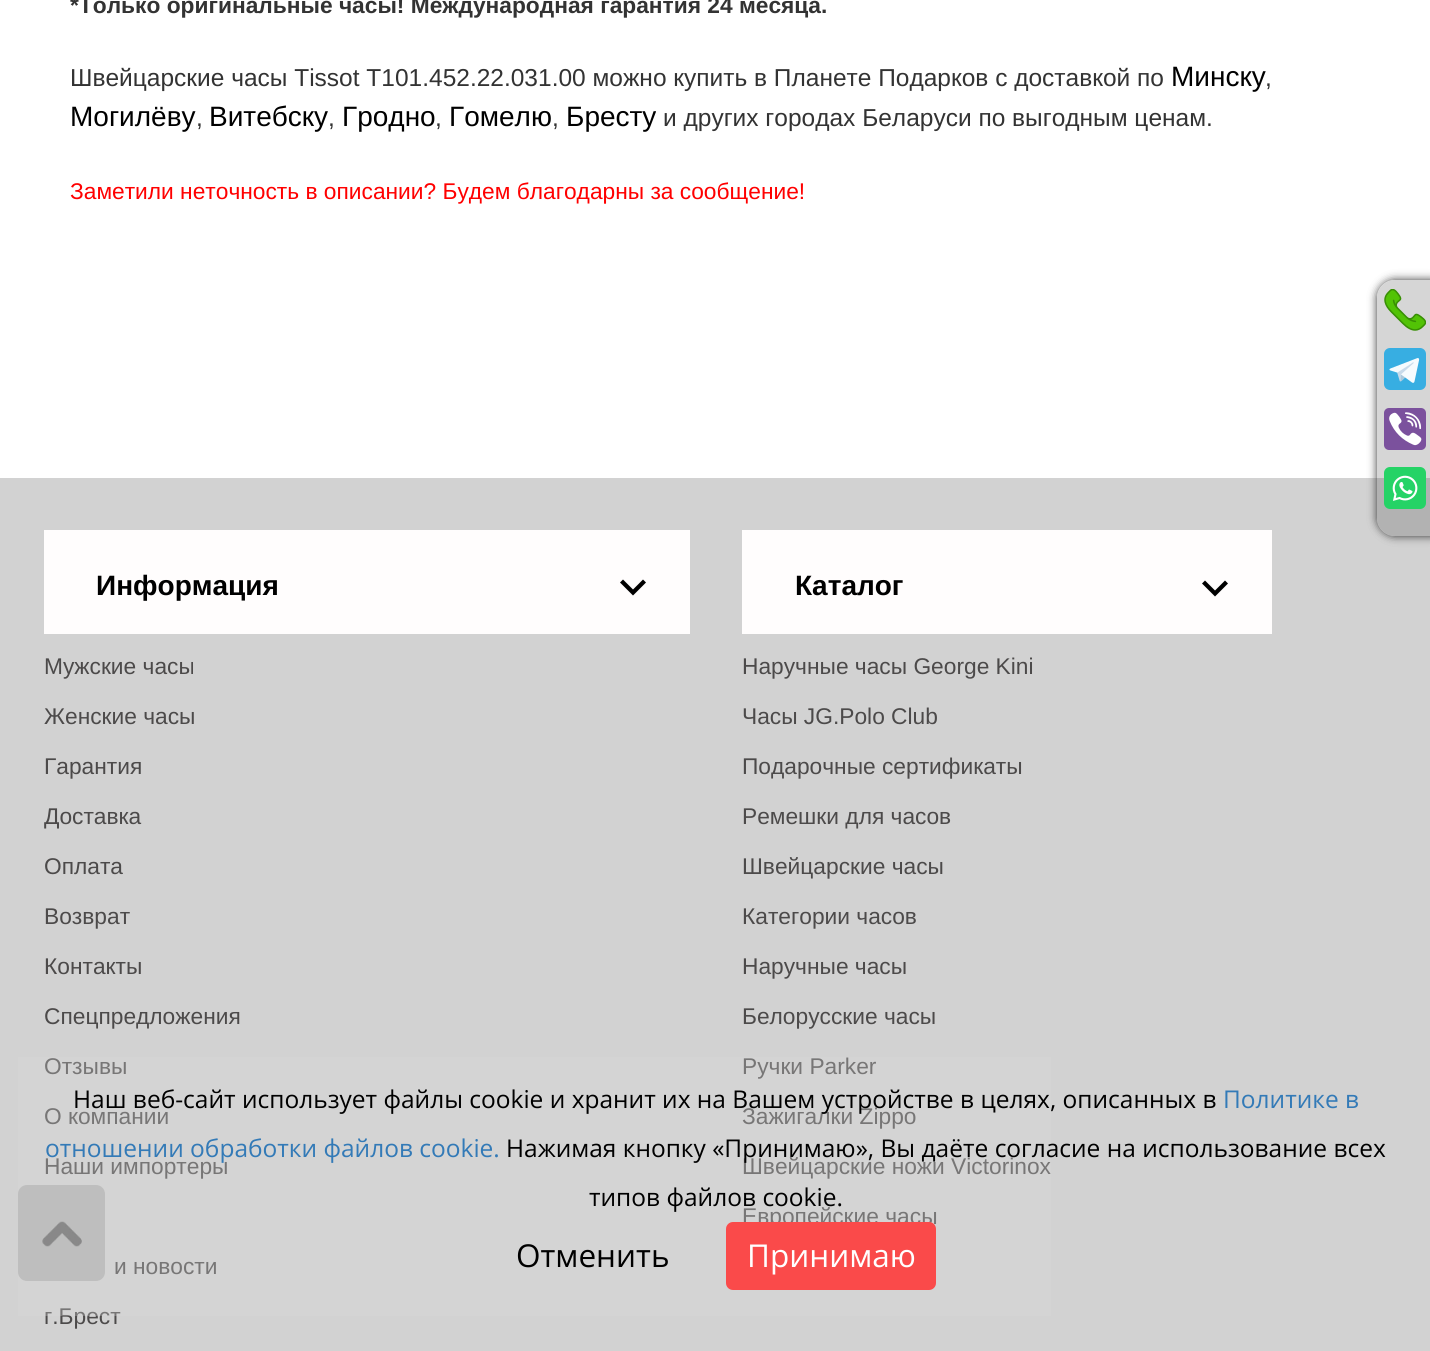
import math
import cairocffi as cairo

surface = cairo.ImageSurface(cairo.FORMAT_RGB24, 1430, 1351)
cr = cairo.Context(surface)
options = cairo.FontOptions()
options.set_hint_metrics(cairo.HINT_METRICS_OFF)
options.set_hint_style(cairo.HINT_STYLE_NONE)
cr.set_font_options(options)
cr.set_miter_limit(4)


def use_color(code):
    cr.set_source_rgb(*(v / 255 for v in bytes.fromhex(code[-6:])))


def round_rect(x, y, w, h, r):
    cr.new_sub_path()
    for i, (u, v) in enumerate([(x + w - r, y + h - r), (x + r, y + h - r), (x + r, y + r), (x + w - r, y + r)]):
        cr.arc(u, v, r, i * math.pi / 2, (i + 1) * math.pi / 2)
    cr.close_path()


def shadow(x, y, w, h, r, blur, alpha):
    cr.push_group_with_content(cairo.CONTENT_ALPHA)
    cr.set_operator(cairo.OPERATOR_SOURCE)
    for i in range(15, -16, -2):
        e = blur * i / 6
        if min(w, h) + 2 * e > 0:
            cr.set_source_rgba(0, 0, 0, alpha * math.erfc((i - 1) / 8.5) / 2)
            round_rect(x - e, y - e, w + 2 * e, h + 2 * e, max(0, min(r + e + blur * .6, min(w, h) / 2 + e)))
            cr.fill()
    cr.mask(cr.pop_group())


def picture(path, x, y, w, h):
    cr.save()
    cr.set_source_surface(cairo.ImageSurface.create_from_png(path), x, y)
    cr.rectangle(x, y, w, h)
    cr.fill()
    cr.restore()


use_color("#ffffff")
cr.paint()
cr.select_font_face("Liberation Sans", cairo.FONT_SLANT_NORMAL, cairo.FONT_WEIGHT_BOLD)
cr.set_font_size(22.75)
use_color("#333333")
cr.move_to(70, 13)
cr.show_text("*Только оригинальные часы! Международная гарантия 24 месяца.")
cr.select_font_face("Liberation Sans")
cr.set_font_size(24.5)
cr.move_to(70, 86)
cr.show_text("Швейцарские часы Tissot T101.452.22.031.00 можно купить в Планете Подарков с доставкой по")
cr.set_font_size(28)
use_color("#000000")
cr.move_to(1171, 86)
cr.show_text("Минску")
cr.set_font_size(24.5)
use_color("#333333")
cr.move_to(1265, 86)
cr.show_text(",")
cr.set_font_size(28)
use_color("#000000")
cr.move_to(70, 126)
cr.show_text("Могилёву")
cr.set_font_size(24.5)
use_color("#333333")
cr.move_to(196, 126)
cr.show_text(",")
cr.set_font_size(28)
use_color("#000000")
cr.move_to(209, 126)
cr.show_text("Витебску")
cr.set_font_size(24.5)
use_color("#333333")
cr.move_to(328, 126)
cr.show_text(",")
cr.set_font_size(28)
use_color("#000000")
cr.move_to(342, 126)
cr.show_text("Гродно")
cr.set_font_size(24.5)
use_color("#333333")
cr.move_to(435, 126)
cr.show_text(",")
cr.set_font_size(28)
use_color("#000000")
cr.move_to(449, 126)
cr.show_text("Гомелю")
cr.set_font_size(24.5)
use_color("#333333")
cr.move_to(552, 126)
cr.show_text(",")
cr.set_font_size(28)
use_color("#000000")
cr.move_to(566, 126)
cr.show_text("Бресту")
cr.set_font_size(24.5)
use_color("#333333")
cr.move_to(663, 126)
cr.show_text("и других городах Беларуси по выгодным ценам.")
cr.set_font_size(22.75)
use_color("#ff0000")
cr.move_to(70, 199)
cr.show_text("Заметили неточность в описании? Будем благодарны за сообщение!")
use_color("#d2d2d2")
cr.rectangle(0, 478, 1430, 873)
cr.fill()
use_color("#fffdfd")
cr.rectangle(44, 530, 646, 104)
cr.fill()
cr.select_font_face("Liberation Sans", cairo.FONT_SLANT_NORMAL, cairo.FONT_WEIGHT_BOLD)
cr.set_font_size(28)
use_color("#000000")
cr.move_to(96, 595)
cr.show_text("Информация")
cr.new_path()
cr.move_to(646, 582.5)
cr.line_to(643, 579.5)
cr.line_to(633, 589.5)
cr.line_to(623, 579.5)
cr.line_to(620, 582.5)
cr.line_to(633, 595.5)
cr.close_path()
cr.fill()
cr.select_font_face("Liberation Sans")
cr.set_font_size(22.75)
use_color("#4c4a4a")
cr.move_to(44, 674)
cr.show_text("Мужские часы")
cr.move_to(44, 724)
cr.show_text("Женские часы")
cr.move_to(44, 774)
cr.show_text("Гарантия")
cr.move_to(44, 824)
cr.show_text("Доставка")
cr.move_to(44, 874)
cr.show_text("Оплата")
cr.move_to(44, 924)
cr.show_text("Возврат")
cr.move_to(44, 974)
cr.show_text("Контакты")
cr.move_to(44, 1024)
cr.show_text("Спецпредложения")
cr.move_to(44, 1074)
cr.show_text("Отзывы")
cr.move_to(44, 1124)
cr.show_text("О компании")
cr.move_to(44, 1174)
cr.show_text("Наши импортеры")
cr.move_to(114, 1274)
cr.show_text("и новости")
cr.move_to(44, 1324)
cr.show_text("г.Брест")
use_color("#fffdfd")
cr.rectangle(742, 530, 530, 104)
cr.fill()
cr.select_font_face("Liberation Sans", cairo.FONT_SLANT_NORMAL, cairo.FONT_WEIGHT_BOLD)
cr.set_font_size(28)
use_color("#000000")
cr.move_to(795, 595)
cr.show_text("Каталог")
cr.new_path()
cr.move_to(1228, 583.5)
cr.line_to(1225, 580.5)
cr.line_to(1215, 590.5)
cr.line_to(1205, 580.5)
cr.line_to(1202, 583.5)
cr.line_to(1215, 596.5)
cr.close_path()
cr.fill()
cr.select_font_face("Liberation Sans")
cr.set_font_size(22.75)
use_color("#4c4a4a")
cr.move_to(742, 674)
cr.show_text("Наручные часы George Kini")
cr.move_to(742, 724)
cr.show_text("Часы JG.Polo Club")
cr.move_to(742, 774)
cr.show_text("Подарочные сертификаты")
cr.move_to(742, 824)
cr.show_text("Ремешки для часов")
cr.move_to(742, 874)
cr.show_text("Швейцарские часы")
cr.move_to(742, 924)
cr.show_text("Категории часов")
cr.move_to(742, 974)
cr.show_text("Наручные часы")
cr.move_to(742, 1024)
cr.show_text("Белорусские часы")
cr.move_to(742, 1074)
cr.show_text("Ручки Parker")
cr.move_to(742, 1124)
cr.show_text("Зажигалки Zippo")
cr.move_to(742, 1174)
cr.show_text("Швейцарские ножи Victorinox")
cr.move_to(742, 1224)
cr.show_text("Европейские часы")
cr.set_source_rgba(0.667, 0.667, 0.667, 0.8)
round_rect(18, 1185, 87, 96, 9)
cr.fill()
picture("img1.png", 42, 1221, 40, 26)
cr.save()
cr.set_fill_rule(cairo.FILL_RULE_EVEN_ODD)
cr.new_path()
cr.move_to(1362, 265)
cr.line_to(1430, 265)
cr.line_to(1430, 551)
cr.line_to(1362, 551)
cr.close_path()
cr.move_to(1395, 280)
cr.line_to(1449, 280)
cr.line_to(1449, 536)
cr.line_to(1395, 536)
cr.curve_to(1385, 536, 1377, 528, 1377, 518)
cr.line_to(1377, 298)
cr.curve_to(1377, 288, 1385, 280, 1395, 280)
cr.close_path()
cr.clip()
use_color("#333333")
shadow(1377, 280, 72, 256, 18, 4.5, 1)
cr.restore()
cr.set_source_rgba(0.239, 0.231, 0.231, 0.21)
cr.new_path()
cr.move_to(1395, 280)
cr.line_to(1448, 280)
cr.line_to(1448, 536)
cr.line_to(1395, 536)
cr.curve_to(1385, 536, 1377, 528, 1377, 518)
cr.line_to(1377, 298)
cr.curve_to(1377, 288, 1385, 280, 1395, 280)
cr.close_path()
cr.fill()
picture("img2.png", 1384, 289, 42, 42)
picture("img3.png", 1384, 348, 42, 42)
picture("img4.png", 1384, 408, 42, 42)
picture("img5.png", 1384, 467, 42, 42)
cr.set_source_rgba(0.851, 0.851, 0.851, 0.31)
cr.rectangle(18, 1057, 1033, 259)
cr.fill()
cr.select_font_face("Open Sans")
cr.set_font_size(24.5)
use_color("#000000")
cr.move_to(73, 1108)
cr.show_text("Наш веб-сайт использует файлы cookie и хранит их на Вашем устройстве в целях, описанных в")
use_color("#337ab7")
cr.move_to(1223, 1108)
cr.show_text("Политике в")
cr.move_to(45, 1157)
cr.show_text("отношении обработки файлов сookie.")
use_color("#000000")
cr.move_to(506, 1157)
cr.show_text("Нажимая кнопку «Принимаю», Вы даёте согласие на использование всех")
cr.move_to(589, 1206)
cr.show_text("типов файлов cookie.")
cr.set_font_size(31.5)
cr.move_to(516, 1267)
cr.show_text("Отменить")
use_color("#fa4a4a")
round_rect(726, 1222, 210, 68, 7)
cr.fill()
use_color("#ffffff")
cr.move_to(747, 1267)
cr.show_text("Принимаю")
surface.write_to_png("result.png")
